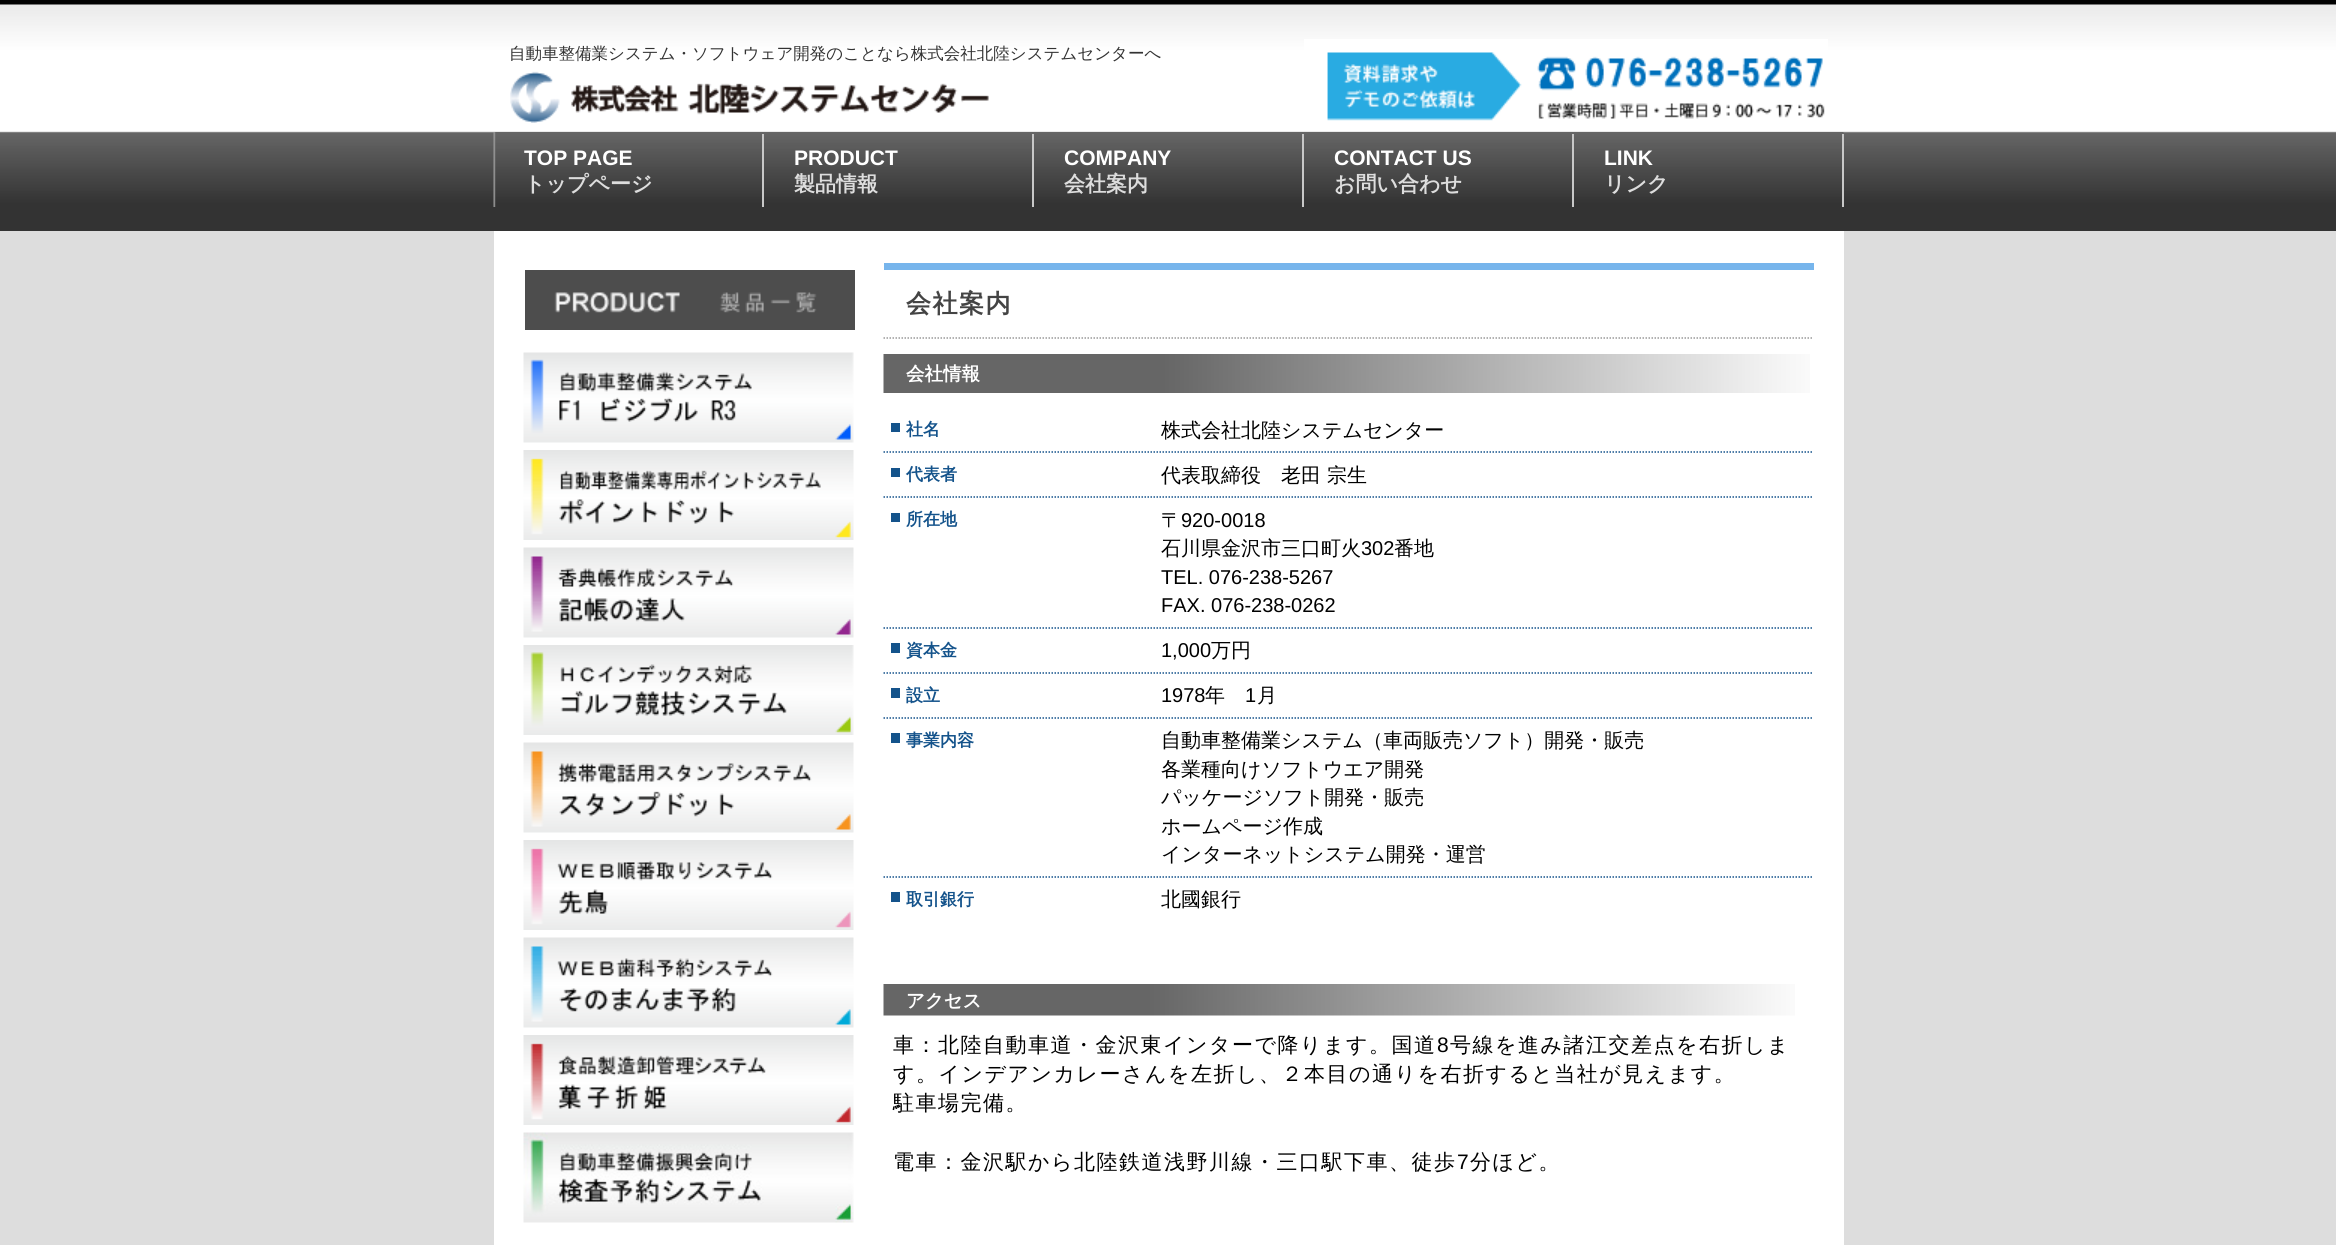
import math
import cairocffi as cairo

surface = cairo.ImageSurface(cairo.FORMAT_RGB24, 2336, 1245)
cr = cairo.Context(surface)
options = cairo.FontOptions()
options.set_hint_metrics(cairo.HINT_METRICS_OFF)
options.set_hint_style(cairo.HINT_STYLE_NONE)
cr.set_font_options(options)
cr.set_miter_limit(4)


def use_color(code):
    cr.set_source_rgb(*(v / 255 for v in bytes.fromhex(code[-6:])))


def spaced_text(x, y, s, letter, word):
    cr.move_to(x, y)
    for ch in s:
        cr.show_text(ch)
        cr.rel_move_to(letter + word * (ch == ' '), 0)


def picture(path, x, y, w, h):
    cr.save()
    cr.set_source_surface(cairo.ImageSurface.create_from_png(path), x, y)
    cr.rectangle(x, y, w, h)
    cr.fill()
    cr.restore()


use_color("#dddddd")
cr.paint()
picture("img1.png", 0, 0, 2336, 231)
cr.select_font_face("WenQuanYi Zen Hei Medium")
cr.set_font_size(16.5)
use_color("#333333")
cr.move_to(509, 59)
cr.show_text("自動車整備業システム・ソフトウェア開発のことなら株式会社北陸システムセンターへ")
picture("img2.png", 1304, 39, 524, 82)
picture("img3.png", 510, 71, 479, 52)
use_color("#ffffff")
cr.rectangle(494, 231, 1350, 1014)
cr.fill()
picture("img4.png", 493, 132, 1351, 75)
use_color("#c8c8c8")
cr.rectangle(762, 134, 2, 73)
cr.fill()
cr.select_font_face("Liberation Sans", cairo.FONT_SLANT_NORMAL, cairo.FONT_WEIGHT_BOLD)
cr.set_font_size(21)
use_color("#ffffff")
cr.move_to(524, 165)
cr.show_text("TOP PAGE")
cr.select_font_face("WenQuanYi Zen Hei", cairo.FONT_SLANT_NORMAL, cairo.FONT_WEIGHT_BOLD)
use_color("#dddddd")
cr.move_to(524, 191)
cr.show_text("トップページ")
use_color("#c8c8c8")
cr.rectangle(1032, 134, 2, 73)
cr.fill()
cr.select_font_face("Liberation Sans", cairo.FONT_SLANT_NORMAL, cairo.FONT_WEIGHT_BOLD)
use_color("#ffffff")
cr.move_to(794, 165)
cr.show_text("PRODUCT")
cr.select_font_face("WenQuanYi Zen Hei", cairo.FONT_SLANT_NORMAL, cairo.FONT_WEIGHT_BOLD)
use_color("#dddddd")
cr.move_to(794, 191)
cr.show_text("製品情報")
use_color("#c8c8c8")
cr.rectangle(1302, 134, 2, 73)
cr.fill()
cr.select_font_face("Liberation Sans", cairo.FONT_SLANT_NORMAL, cairo.FONT_WEIGHT_BOLD)
use_color("#ffffff")
cr.move_to(1064, 165)
cr.show_text("COMPANY")
cr.select_font_face("WenQuanYi Zen Hei", cairo.FONT_SLANT_NORMAL, cairo.FONT_WEIGHT_BOLD)
use_color("#dddddd")
cr.move_to(1064, 191)
cr.show_text("会社案内")
use_color("#c8c8c8")
cr.rectangle(1572, 134, 2, 73)
cr.fill()
cr.select_font_face("Liberation Sans", cairo.FONT_SLANT_NORMAL, cairo.FONT_WEIGHT_BOLD)
use_color("#ffffff")
cr.move_to(1334, 165)
cr.show_text("CONTACT US")
cr.select_font_face("WenQuanYi Zen Hei", cairo.FONT_SLANT_NORMAL, cairo.FONT_WEIGHT_BOLD)
use_color("#dddddd")
cr.move_to(1334, 191)
cr.show_text("お問い合わせ")
use_color("#c8c8c8")
cr.rectangle(1842, 134, 2, 73)
cr.fill()
cr.select_font_face("Liberation Sans", cairo.FONT_SLANT_NORMAL, cairo.FONT_WEIGHT_BOLD)
use_color("#ffffff")
cr.move_to(1604, 165)
cr.show_text("LINK")
cr.select_font_face("WenQuanYi Zen Hei", cairo.FONT_SLANT_NORMAL, cairo.FONT_WEIGHT_BOLD)
use_color("#dddddd")
cr.move_to(1604, 191)
cr.show_text("リンク")
picture("img5.png", 525, 270, 330, 60)
picture("img6.png", 523, 352, 331, 91)
picture("img7.png", 523, 450, 331, 90)
picture("img8.png", 523, 547, 331, 91)
picture("img9.png", 523, 645, 331, 90)
picture("img10.png", 523, 742, 331, 91)
picture("img11.png", 523, 840, 331, 90)
picture("img12.png", 523, 937, 331, 91)
picture("img13.png", 523, 1035, 331, 90)
picture("img14.png", 523, 1132, 331, 91)
use_color("#77b5ec")
cr.rectangle(884, 263, 930, 7)
cr.fill()
cr.new_path()
cr.move_to(883.5, 338)
cr.line_to(1813.5, 338)
use_color("#999999")
cr.set_line_width(1.5)
cr.set_dash([1.5, 1.5])
cr.stroke()
cr.set_font_size(25)
use_color("#444444")
spaced_text(906, 312, "会社案内", 1.5, 0)
picture("img15.png", 883, 354, 927, 39)
cr.set_font_size(18.5)
use_color("#ffffff")
cr.move_to(906, 380)
cr.show_text("会社情報")
use_color("#14538b")
cr.rectangle(891, 423, 9, 9)
cr.fill()
cr.set_font_size(17)
cr.move_to(906, 435)
cr.show_text("社名")
cr.new_path()
cr.move_to(883.5, 452)
cr.line_to(1813.5, 452)
cr.stroke()
cr.select_font_face("WenQuanYi Zen Hei Medium")
cr.set_font_size(20)
use_color("#000000")
cr.move_to(1161, 437)
cr.show_text("株式会社北陸システムセンター")
use_color("#14538b")
cr.rectangle(891, 468, 9, 9)
cr.fill()
cr.select_font_face("WenQuanYi Zen Hei", cairo.FONT_SLANT_NORMAL, cairo.FONT_WEIGHT_BOLD)
cr.set_font_size(17)
cr.move_to(906, 480)
cr.show_text("代表者")
cr.new_path()
cr.move_to(883.5, 497)
cr.line_to(1813.5, 497)
cr.stroke()
cr.select_font_face("WenQuanYi Zen Hei Medium")
cr.set_font_size(20)
use_color("#000000")
cr.move_to(1161, 482)
cr.show_text("代表取締役　老田 宗生")
use_color("#14538b")
cr.rectangle(891, 513, 9, 9)
cr.fill()
cr.select_font_face("WenQuanYi Zen Hei", cairo.FONT_SLANT_NORMAL, cairo.FONT_WEIGHT_BOLD)
cr.set_font_size(17)
cr.move_to(906, 525)
cr.show_text("所在地")
cr.new_path()
cr.move_to(883.5, 628)
cr.line_to(1813.5, 628)
cr.stroke()
cr.select_font_face("WenQuanYi Zen Hei Medium")
cr.set_font_size(20)
use_color("#000000")
cr.move_to(1161, 527)
cr.show_text("〒")
cr.select_font_face("Liberation Sans")
cr.move_to(1181, 527)
cr.show_text("920-0018")
cr.select_font_face("WenQuanYi Zen Hei Medium")
cr.move_to(1161, 555)
cr.show_text("石川県金沢市三口町火")
cr.select_font_face("Liberation Sans")
cr.move_to(1361, 555)
cr.show_text("302")
cr.select_font_face("WenQuanYi Zen Hei Medium")
cr.move_to(1394, 555)
cr.show_text("番地")
cr.select_font_face("Liberation Sans")
cr.move_to(1161, 584)
cr.show_text("TEL. 076-238-5267")
cr.move_to(1161, 612)
cr.show_text("FAX. 076-238-0262")
use_color("#14538b")
cr.rectangle(891, 643, 9, 10)
cr.fill()
cr.select_font_face("WenQuanYi Zen Hei", cairo.FONT_SLANT_NORMAL, cairo.FONT_WEIGHT_BOLD)
cr.set_font_size(17)
cr.move_to(906, 656)
cr.show_text("資本金")
cr.new_path()
cr.move_to(883.5, 673)
cr.line_to(1813.5, 673)
cr.stroke()
cr.select_font_face("Liberation Sans")
cr.set_font_size(20)
use_color("#000000")
cr.move_to(1161, 657)
cr.show_text("1,000")
cr.select_font_face("WenQuanYi Zen Hei Medium")
cr.move_to(1211, 657)
cr.show_text("万円")
use_color("#14538b")
cr.rectangle(891, 688, 9, 10)
cr.fill()
cr.select_font_face("WenQuanYi Zen Hei", cairo.FONT_SLANT_NORMAL, cairo.FONT_WEIGHT_BOLD)
cr.set_font_size(17)
cr.move_to(906, 701)
cr.show_text("設立")
cr.new_path()
cr.move_to(883.5, 718)
cr.line_to(1813.5, 718)
cr.stroke()
cr.select_font_face("Liberation Sans")
cr.set_font_size(20)
use_color("#000000")
cr.move_to(1161, 702)
cr.show_text("1978")
cr.select_font_face("WenQuanYi Zen Hei Medium")
cr.move_to(1205, 702)
cr.show_text("年")
cr.select_font_face("Liberation Sans")
cr.move_to(1245, 702)
cr.show_text("1")
cr.select_font_face("WenQuanYi Zen Hei Medium")
cr.move_to(1257, 702)
cr.show_text("月")
use_color("#14538b")
cr.rectangle(891, 733, 9, 10)
cr.fill()
cr.select_font_face("WenQuanYi Zen Hei", cairo.FONT_SLANT_NORMAL, cairo.FONT_WEIGHT_BOLD)
cr.set_font_size(17)
cr.move_to(906, 746)
cr.show_text("事業内容")
cr.new_path()
cr.move_to(883.5, 877)
cr.line_to(1813.5, 877)
cr.stroke()
cr.select_font_face("WenQuanYi Zen Hei Medium")
cr.set_font_size(20)
use_color("#000000")
cr.move_to(1161, 747)
cr.show_text("自動車整備業システム（車両販売ソフト）開発・販売")
cr.move_to(1161, 776)
cr.show_text("各業種向けソフトウエア開発")
cr.move_to(1161, 804)
cr.show_text("パッケージソフト開発・販売")
cr.move_to(1161, 833)
cr.show_text("ホームページ作成")
cr.move_to(1161, 861)
cr.show_text("インターネットシステム開発・運営")
use_color("#14538b")
cr.rectangle(891, 892, 9, 10)
cr.fill()
cr.select_font_face("WenQuanYi Zen Hei", cairo.FONT_SLANT_NORMAL, cairo.FONT_WEIGHT_BOLD)
cr.set_font_size(17)
cr.move_to(906, 905)
cr.show_text("取引銀行")
cr.select_font_face("WenQuanYi Zen Hei Medium")
cr.set_font_size(20)
use_color("#000000")
cr.move_to(1161, 906)
cr.show_text("北國銀行")
picture("img16.png", 883, 984, 912, 32)
cr.select_font_face("WenQuanYi Zen Hei", cairo.FONT_SLANT_NORMAL, cairo.FONT_WEIGHT_BOLD)
cr.set_font_size(18.5)
use_color("#ffffff")
cr.move_to(906, 1007)
cr.show_text("アクセス")
cr.select_font_face("WenQuanYi Zen Hei Medium")
cr.set_font_size(21)
use_color("#000000")
spaced_text(893, 1052, "車：北陸自動車道・金沢東インターで降ります。国道", 1.5, 0)
cr.select_font_face("Liberation Sans")
spaced_text(1437, 1052, "8", 1.5, 0)
cr.select_font_face("WenQuanYi Zen Hei Medium")
spaced_text(1450, 1052, "号線を進み諸江交差点を右折しま", 1.5, 0)
spaced_text(893, 1081, "す。インデアンカレーさんを左折し、２本目の通りを右折すると当社が見えます。", 1.5, 0)
spaced_text(893, 1110, "駐車場完備。", 1.5, 0)
spaced_text(893, 1169, "電車：金沢駅から北陸鉄道浅野川線・三口駅下車、徒歩", 1.5, 0)
cr.select_font_face("Liberation Sans")
spaced_text(1457, 1169, "7", 1.5, 0)
cr.select_font_face("WenQuanYi Zen Hei Medium")
spaced_text(1470, 1169, "分ほど。", 1.5, 0)
surface.write_to_png("result.png")
